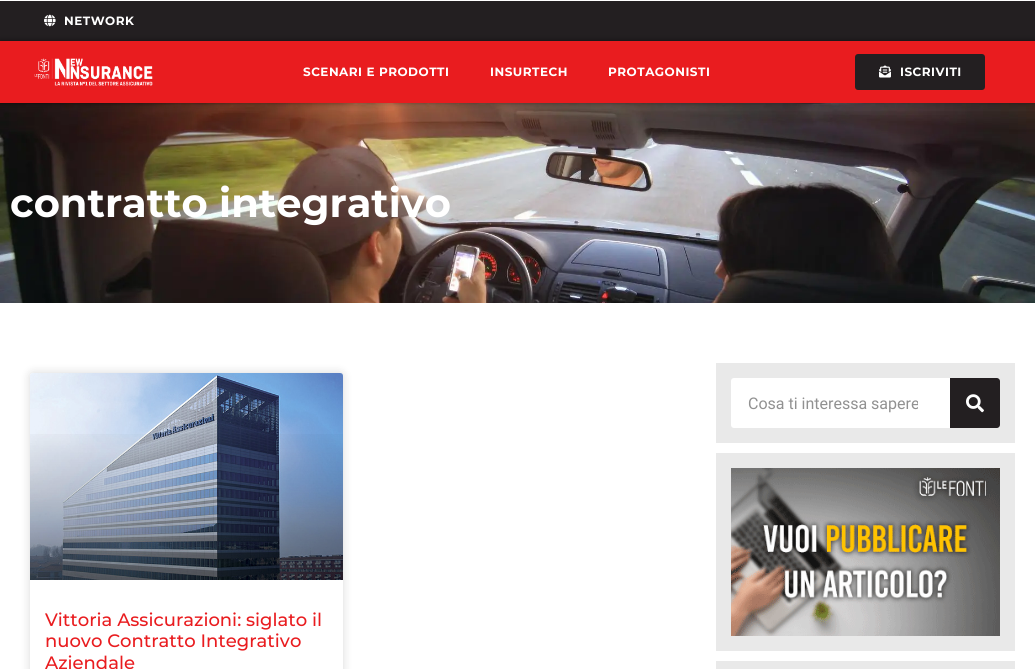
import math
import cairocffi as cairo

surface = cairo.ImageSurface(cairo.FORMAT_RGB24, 1035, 669)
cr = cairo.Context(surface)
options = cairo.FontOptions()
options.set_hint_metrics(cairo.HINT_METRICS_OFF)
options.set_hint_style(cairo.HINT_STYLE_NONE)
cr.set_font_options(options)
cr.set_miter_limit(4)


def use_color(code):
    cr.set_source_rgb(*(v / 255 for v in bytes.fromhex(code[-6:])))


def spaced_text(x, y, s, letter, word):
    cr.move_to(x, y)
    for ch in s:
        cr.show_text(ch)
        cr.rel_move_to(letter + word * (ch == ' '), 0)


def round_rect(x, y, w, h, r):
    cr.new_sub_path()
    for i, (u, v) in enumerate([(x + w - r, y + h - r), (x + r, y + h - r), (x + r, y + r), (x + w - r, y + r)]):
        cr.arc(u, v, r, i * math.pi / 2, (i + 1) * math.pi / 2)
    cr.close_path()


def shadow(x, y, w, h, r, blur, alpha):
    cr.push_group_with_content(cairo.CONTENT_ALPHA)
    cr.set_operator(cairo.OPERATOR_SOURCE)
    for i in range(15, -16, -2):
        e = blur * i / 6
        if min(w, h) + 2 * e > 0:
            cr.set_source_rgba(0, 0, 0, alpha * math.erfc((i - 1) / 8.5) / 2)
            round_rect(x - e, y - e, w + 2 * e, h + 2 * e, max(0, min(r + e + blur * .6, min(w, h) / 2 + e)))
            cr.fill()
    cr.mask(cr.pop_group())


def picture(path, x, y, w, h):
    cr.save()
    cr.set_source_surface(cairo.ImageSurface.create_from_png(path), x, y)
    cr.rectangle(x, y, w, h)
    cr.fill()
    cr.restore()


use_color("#ffffff")
cr.paint()
use_color("#231f21")
cr.rectangle(0, 1, 1035, 40)
cr.fill()
picture("img1.png", 44, 14, 12, 13)
cr.select_font_face("Montserrat", cairo.FONT_SLANT_NORMAL, cairo.FONT_WEIGHT_BOLD)
cr.set_font_size(12)
use_color("#ffffff")
spaced_text(64, 25, "NETWORK", 0.5, 0)
picture("img4.png", 0, 103, 1035, 200)
use_color("#000000")
shadow(0, 41, 1035, 62, 0, 3, 0.5)
use_color("#e91c1f")
cr.rectangle(0, 41, 1035, 62)
cr.fill()
picture("img2.png", 34, 58, 119, 28)
use_color("#ffffff")
spaced_text(303, 76, "SCENARI E PRODOTTI", 0.5, 0)
spaced_text(490, 76, "INSURTECH", 0.5, 0)
spaced_text(608, 76, "PROTAGONISTI", 0.5, 0)
use_color("#231f21")
round_rect(855, 54, 130, 36, 3)
cr.fill()
picture("img3.png", 879, 65, 12, 13)
use_color("#ffffff")
spaced_text(900, 76, "ISCRIVITI", 0.5, 0)
cr.set_font_size(40)
cr.move_to(10, 217)
cr.show_text("contratto integrativo")
use_color("#e9e9e9")
cr.rectangle(716, 363, 299, 80)
cr.fill()
use_color("#ffffff")
round_rect(731, 378, 269, 50, 3)
cr.fill()
cr.save()
cr.rectangle(748, 394, 170, 19)
cr.clip()
cr.select_font_face("Roboto")
cr.set_font_size(16)
use_color("#919191")
cr.move_to(748, 409)
cr.show_text("Cosa ti interessa sapere")
cr.restore()
use_color("#231f21")
cr.new_path()
cr.move_to(950, 378)
cr.line_to(997, 378)
cr.curve_to(998.5, 378, 1000, 379.5, 1000, 381)
cr.line_to(1000, 425)
cr.curve_to(1000, 426.5, 998.5, 428, 997, 428)
cr.line_to(950, 428)
cr.close_path()
cr.fill()
picture("img5.png", 966, 394, 18, 19)
use_color("#e9e9e9")
cr.rectangle(716, 453, 299, 198)
cr.fill()
picture("img6.png", 731, 468, 269, 168)
cr.rectangle(716, 661, 299, 8)
cr.fill()
use_color("#000000")
shadow(30, 373, 313, 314, 3, 5, 0.15)
use_color("#ffffff")
round_rect(30, 373, 313, 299, 3)
cr.fill()
picture("img7.png", 30, 373, 313, 207)
gradient = cairo.LinearGradient(187, 580, 187, 373)
gradient.add_color_stop_rgba(0, 0, 0, 0, 0.35)
gradient.add_color_stop_rgba(0.75, 0, 0, 0, 0)
cr.set_source(gradient)
cr.rectangle(30, 434, 313, 146)
cr.fill()
cr.select_font_face("Montserrat Medium")
cr.set_font_size(18)
use_color("#e91c1f")
cr.move_to(45, 626)
cr.show_text("Vittoria Assicurazioni: siglato il")
cr.move_to(45, 647)
cr.show_text("nuovo Contratto Integrativo")
cr.move_to(45, 669)
cr.show_text("Aziendale")
surface.write_to_png("result.png")
